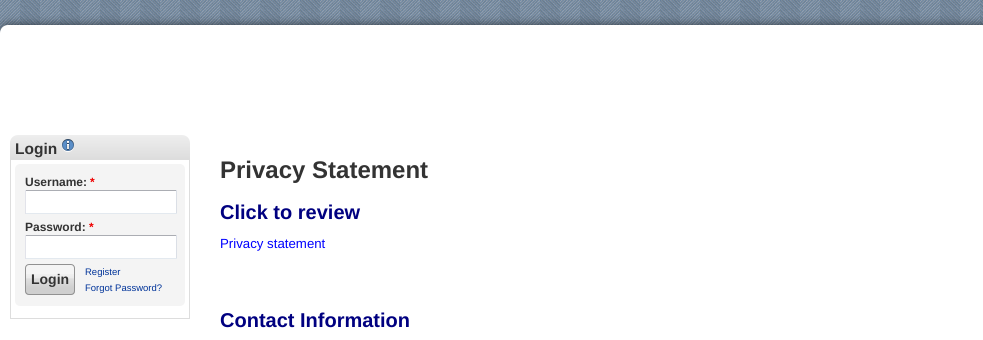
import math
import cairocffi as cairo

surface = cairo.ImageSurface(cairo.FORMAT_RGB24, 983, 340)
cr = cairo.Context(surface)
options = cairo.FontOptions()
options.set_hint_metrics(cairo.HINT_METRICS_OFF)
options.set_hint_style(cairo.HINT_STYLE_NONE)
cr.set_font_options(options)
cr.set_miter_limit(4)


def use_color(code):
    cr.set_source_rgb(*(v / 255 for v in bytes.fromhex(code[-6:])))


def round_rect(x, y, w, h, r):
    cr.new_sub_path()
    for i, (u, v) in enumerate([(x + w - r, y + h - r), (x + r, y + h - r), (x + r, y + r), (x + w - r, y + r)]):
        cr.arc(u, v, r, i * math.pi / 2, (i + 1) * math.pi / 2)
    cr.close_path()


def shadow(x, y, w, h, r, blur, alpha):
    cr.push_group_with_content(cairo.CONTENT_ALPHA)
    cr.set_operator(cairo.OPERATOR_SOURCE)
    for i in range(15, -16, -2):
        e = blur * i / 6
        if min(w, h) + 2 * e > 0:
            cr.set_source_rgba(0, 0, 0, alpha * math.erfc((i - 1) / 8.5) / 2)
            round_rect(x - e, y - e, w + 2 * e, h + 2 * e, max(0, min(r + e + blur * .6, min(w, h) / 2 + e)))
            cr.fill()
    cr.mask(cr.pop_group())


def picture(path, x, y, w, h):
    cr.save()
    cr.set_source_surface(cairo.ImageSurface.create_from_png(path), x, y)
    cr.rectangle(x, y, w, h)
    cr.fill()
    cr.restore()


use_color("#386da3")
cr.paint()
picture("img1.png", 0, 0, 983, 33)
use_color("#000000")
shadow(0, 25, 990, 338, 8, 5, 0.6)
use_color("#ffffff")
cr.new_path()
cr.move_to(8, 25)
cr.line_to(982, 25)
cr.curve_to(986.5, 25, 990, 28.5, 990, 33)
cr.line_to(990, 115)
cr.line_to(0, 115)
cr.line_to(0, 33)
cr.curve_to(0, 28.5, 3.5, 25, 8, 25)
cr.close_path()
cr.fill()
cr.rectangle(0, 115, 983, 225)
cr.fill()
gradient = cairo.LinearGradient(10, 135, 10, 159)
gradient.add_color_stop_rgba(0, 0.933, 0.933, 0.933, 1)
gradient.add_color_stop_rgba(1, 0.867, 0.867, 0.867, 1)
cr.set_source(gradient)
cr.new_path()
cr.move_to(18, 135)
cr.line_to(182, 135)
cr.curve_to(186.5, 135, 190, 138.5, 190, 143)
cr.line_to(190, 159)
cr.line_to(10, 159)
cr.line_to(10, 143)
cr.curve_to(10, 138.5, 13.5, 135, 18, 135)
cr.close_path()
cr.fill()
cr.select_font_face("Liberation Sans", cairo.FONT_SLANT_NORMAL, cairo.FONT_WEIGHT_BOLD)
cr.set_font_size(15.5)
use_color("#333333")
cr.move_to(15, 154)
cr.show_text("Login")
picture("img2.png", 62, 139, 12, 13)
cr.rectangle(10.5, 159.5, 179, 159)
use_color("#dddddd")
cr.set_line_width(1)
cr.stroke()
use_color("#f4f4f4")
round_rect(15, 164, 170, 142, 5)
cr.fill()
cr.set_font_size(12)
use_color("#333333")
cr.move_to(25, 186)
cr.show_text("Username:")
use_color("#ee0000")
cr.move_to(90, 186)
cr.show_text("*")
use_color("#ffffff")
cr.rectangle(26, 191, 150, 22)
cr.fill()
use_color("#abadb3")
cr.rectangle(25, 190, 152, 1)
cr.fill()
use_color("#dbdfe6")
cr.rectangle(176, 190, 1, 24)
cr.fill()
use_color("#e3e9ef")
cr.rectangle(25, 213, 152, 1)
cr.fill()
use_color("#e2e3ea")
cr.rectangle(25, 190, 1, 24)
cr.fill()
use_color("#333333")
cr.move_to(25, 231)
cr.show_text("Password:")
use_color("#ee0000")
cr.move_to(89, 231)
cr.show_text("*")
use_color("#ffffff")
cr.rectangle(26, 236, 150, 22)
cr.fill()
use_color("#abadb3")
cr.rectangle(25, 235, 152, 1)
cr.fill()
use_color("#dbdfe6")
cr.rectangle(176, 235, 1, 24)
cr.fill()
use_color("#e3e9ef")
cr.rectangle(25, 258, 152, 1)
cr.fill()
use_color("#e2e3ea")
cr.rectangle(25, 235, 1, 24)
cr.fill()
picture("img3.png", 25, 274, 50, 21)
round_rect(25.5, 264.5, 49, 30, 3.5)
use_color("#919191")
cr.stroke()
cr.set_font_size(14)
use_color("#333333")
cr.move_to(31, 284)
cr.show_text("Login")
cr.select_font_face("Liberation Sans")
cr.set_font_size(9.5)
use_color("#003399")
cr.move_to(85, 275)
cr.show_text("Register")
cr.move_to(85, 291)
cr.show_text("Forgot Password?")
cr.select_font_face("Liberation Sans", cairo.FONT_SLANT_NORMAL, cairo.FONT_WEIGHT_BOLD)
cr.set_font_size(24)
use_color("#333333")
cr.move_to(220, 178)
cr.show_text("Privacy Statement")
cr.set_font_size(20)
use_color("#000080")
cr.move_to(220, 219)
cr.show_text("Click to review")
cr.select_font_face("Liberation Sans")
cr.set_font_size(13.25)
use_color("#0000ff")
cr.move_to(220, 248)
cr.show_text("Privacy statement")
cr.select_font_face("Liberation Sans", cairo.FONT_SLANT_NORMAL, cairo.FONT_WEIGHT_BOLD)
cr.set_font_size(20)
use_color("#000080")
cr.move_to(220, 327)
cr.show_text("Contact Information")
surface.write_to_png("result.png")
